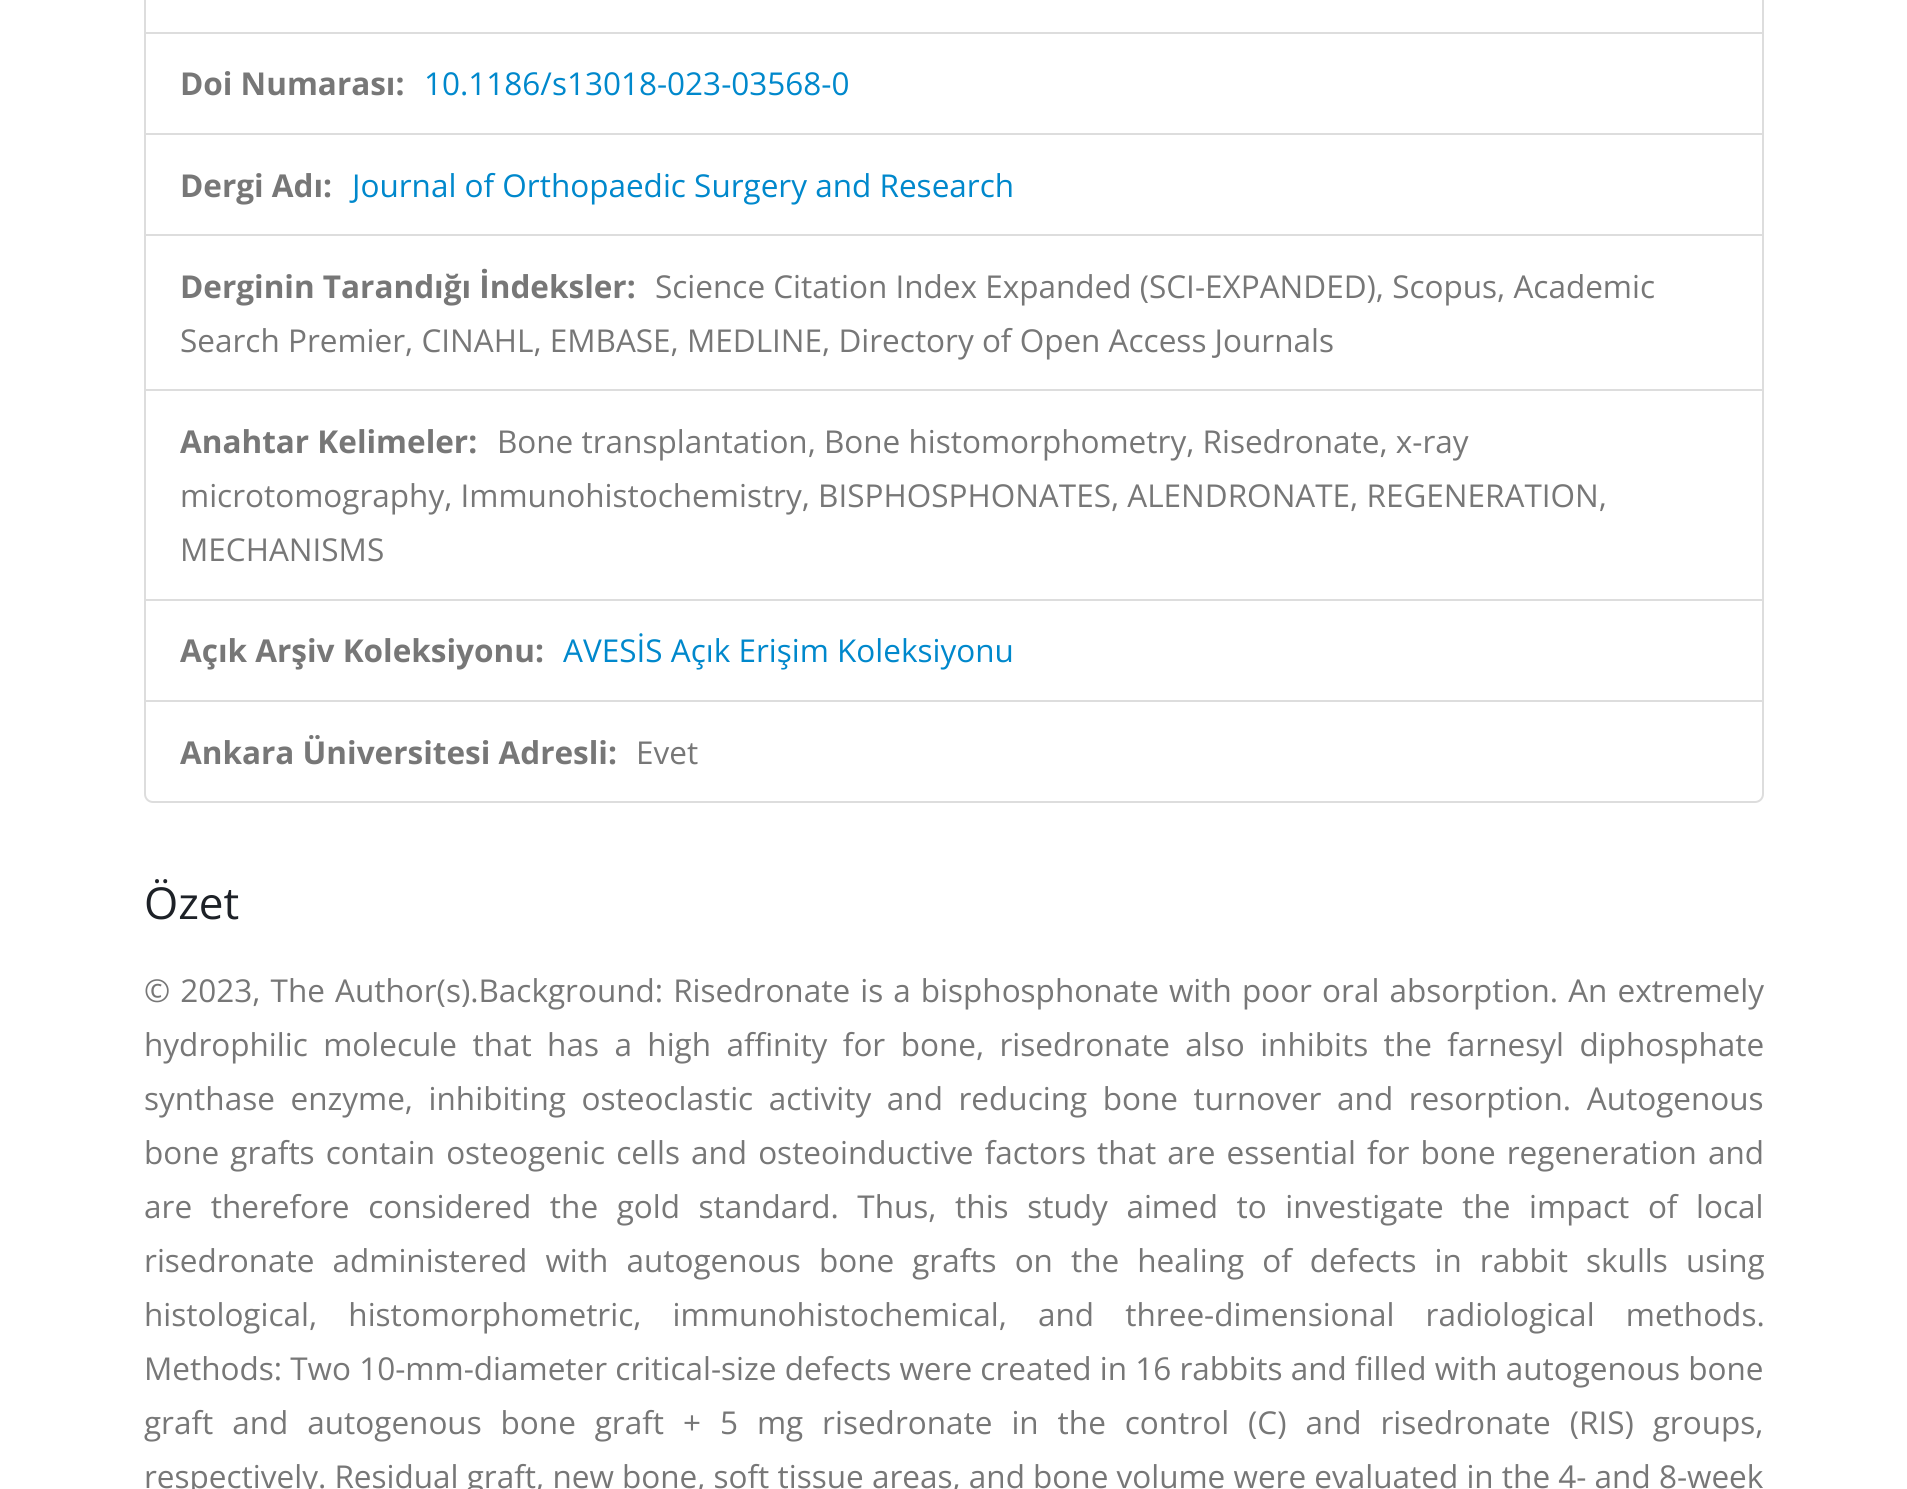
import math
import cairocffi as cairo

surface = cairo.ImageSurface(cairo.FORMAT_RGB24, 1907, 1489)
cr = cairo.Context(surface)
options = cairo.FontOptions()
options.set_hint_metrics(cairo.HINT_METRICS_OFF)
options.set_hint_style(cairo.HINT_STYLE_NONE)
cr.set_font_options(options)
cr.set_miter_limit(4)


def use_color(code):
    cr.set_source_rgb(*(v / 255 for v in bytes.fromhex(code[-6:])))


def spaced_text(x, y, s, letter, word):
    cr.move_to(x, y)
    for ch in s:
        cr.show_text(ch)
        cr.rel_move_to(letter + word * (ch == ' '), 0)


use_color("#ffffff")
cr.paint()
cr.rectangle(145, -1, 1618, 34)
use_color("#dddddd")
cr.stroke()
cr.rectangle(145, 33, 1618, 101)
cr.stroke()
cr.select_font_face("Open Sans", cairo.FONT_SLANT_NORMAL, cairo.FONT_WEIGHT_BOLD)
cr.set_font_size(31.5)
use_color("#777777")
cr.move_to(180, 95)
cr.show_text("Doi Numarası:")
cr.select_font_face("Open Sans")
use_color("#0088cc")
cr.move_to(424, 95)
cr.show_text("10.1186/s13018-023-03568-0")
cr.rectangle(145, 134, 1618, 101)
use_color("#dddddd")
cr.stroke()
cr.select_font_face("Open Sans", cairo.FONT_SLANT_NORMAL, cairo.FONT_WEIGHT_BOLD)
use_color("#777777")
cr.move_to(180, 197)
cr.show_text("Dergi Adı:")
cr.select_font_face("Open Sans")
use_color("#0088cc")
cr.move_to(352, 197)
cr.show_text("Journal of Orthopaedic Surgery and Research")
cr.rectangle(145, 235, 1618, 156)
use_color("#dddddd")
cr.stroke()
cr.select_font_face("Open Sans", cairo.FONT_SLANT_NORMAL, cairo.FONT_WEIGHT_BOLD)
use_color("#777777")
cr.move_to(180, 298)
cr.show_text("Derginin Tarandığı İndeksler:")
cr.select_font_face("Open Sans")
cr.move_to(655, 298)
cr.show_text("Science Citation Index Expanded (SCI-EXPANDED), Scopus, Academic")
cr.move_to(180, 352)
cr.show_text("Search Premier, CINAHL, EMBASE, MEDLINE, Directory of Open Access Journals")
use_color("#ffffff")
cr.rectangle(146, 391, 1616, 1)
cr.fill()
cr.rectangle(145, 390, 1618, 210)
use_color("#dddddd")
cr.stroke()
cr.select_font_face("Open Sans", cairo.FONT_SLANT_NORMAL, cairo.FONT_WEIGHT_BOLD)
use_color("#777777")
cr.move_to(180, 453)
cr.show_text("Anahtar Kelimeler:")
cr.select_font_face("Open Sans")
cr.move_to(497, 453)
cr.show_text("Bone transplantation, Bone histomorphometry, Risedronate, x-ray")
cr.move_to(180, 507)
cr.show_text("microtomography, Immunohistochemistry, BISPHOSPHONATES, ALENDRONATE, REGENERATION,")
cr.move_to(180, 561)
cr.show_text("MECHANISMS")
cr.rectangle(145, 600, 1618, 101)
use_color("#dddddd")
cr.stroke()
cr.select_font_face("Open Sans", cairo.FONT_SLANT_NORMAL, cairo.FONT_WEIGHT_BOLD)
use_color("#777777")
cr.move_to(180, 662)
cr.show_text("Açık Arşiv Koleksiyonu:")
cr.select_font_face("Open Sans")
use_color("#0088cc")
cr.move_to(563, 662)
cr.show_text("AVESİS Açık Erişim Koleksiyonu")
use_color("#ffffff")
cr.new_path()
cr.move_to(145, 701)
cr.line_to(1763, 701)
cr.line_to(1763, 794)
cr.curve_to(1763, 798.5, 1759.5, 802, 1755, 802)
cr.line_to(153, 802)
cr.curve_to(148.5, 802, 145, 798.5, 145, 794)
cr.close_path()
cr.fill_preserve()
use_color("#dddddd")
cr.stroke()
cr.select_font_face("Open Sans", cairo.FONT_SLANT_NORMAL, cairo.FONT_WEIGHT_BOLD)
use_color("#777777")
cr.move_to(180, 764)
cr.show_text("Ankara Üniversitesi Adresli:")
cr.select_font_face("Open Sans")
cr.move_to(636, 764)
cr.show_text("Evet")
cr.set_font_size(44)
use_color("#1d2127")
cr.move_to(144, 919)
cr.show_text("Özet")
cr.set_font_size(31.5)
use_color("#777777")
spaced_text(144, 1002, "© 2023, The Author(s).Background: Risedronate is a bisphosphonate with poor oral absorption. An extremely", 0, 1.9)
spaced_text(144, 1056, "hydrophilic molecule that has a high affinity for bone, risedronate also inhibits the farnesyl diphosphate", 0, 7.25)
spaced_text(144, 1110, "synthase enzyme, inhibiting osteoclastic activity and reducing bone turnover and resorption. Autogenous", 0, 7.4)
spaced_text(144, 1164, "bone grafts contain osteogenic cells and osteoinductive factors that are essential for bone regeneration and", 0, 2.9)
spaced_text(144, 1218, "are therefore considered the gold standard. Thus, this study aimed to investigate the impact of local", 0, 10.4)
spaced_text(144, 1272, "risedronate administered with autogenous bone grafts on the healing of defects in rabbit skulls using", 0, 9.9)
spaced_text(144, 1326, "histological, histomorphometric, immunohistochemical, and three-dimensional radiological methods.", 0, 23)
cr.move_to(144, 1380)
cr.show_text("Methods: Two 10-mm-diameter critical-size defects were created in 16 rabbits and filled with autogenous bone")
spaced_text(144, 1434, "graft and autogenous bone graft + 5 mg risedronate in the control (C) and risedronate (RIS) groups,", 0, 10.75)
cr.move_to(144, 1488)
cr.show_text("respectively. Residual graft, new bone, soft tissue areas, and bone volume were evaluated in the 4- and 8-week")
surface.write_to_png("result.png")
